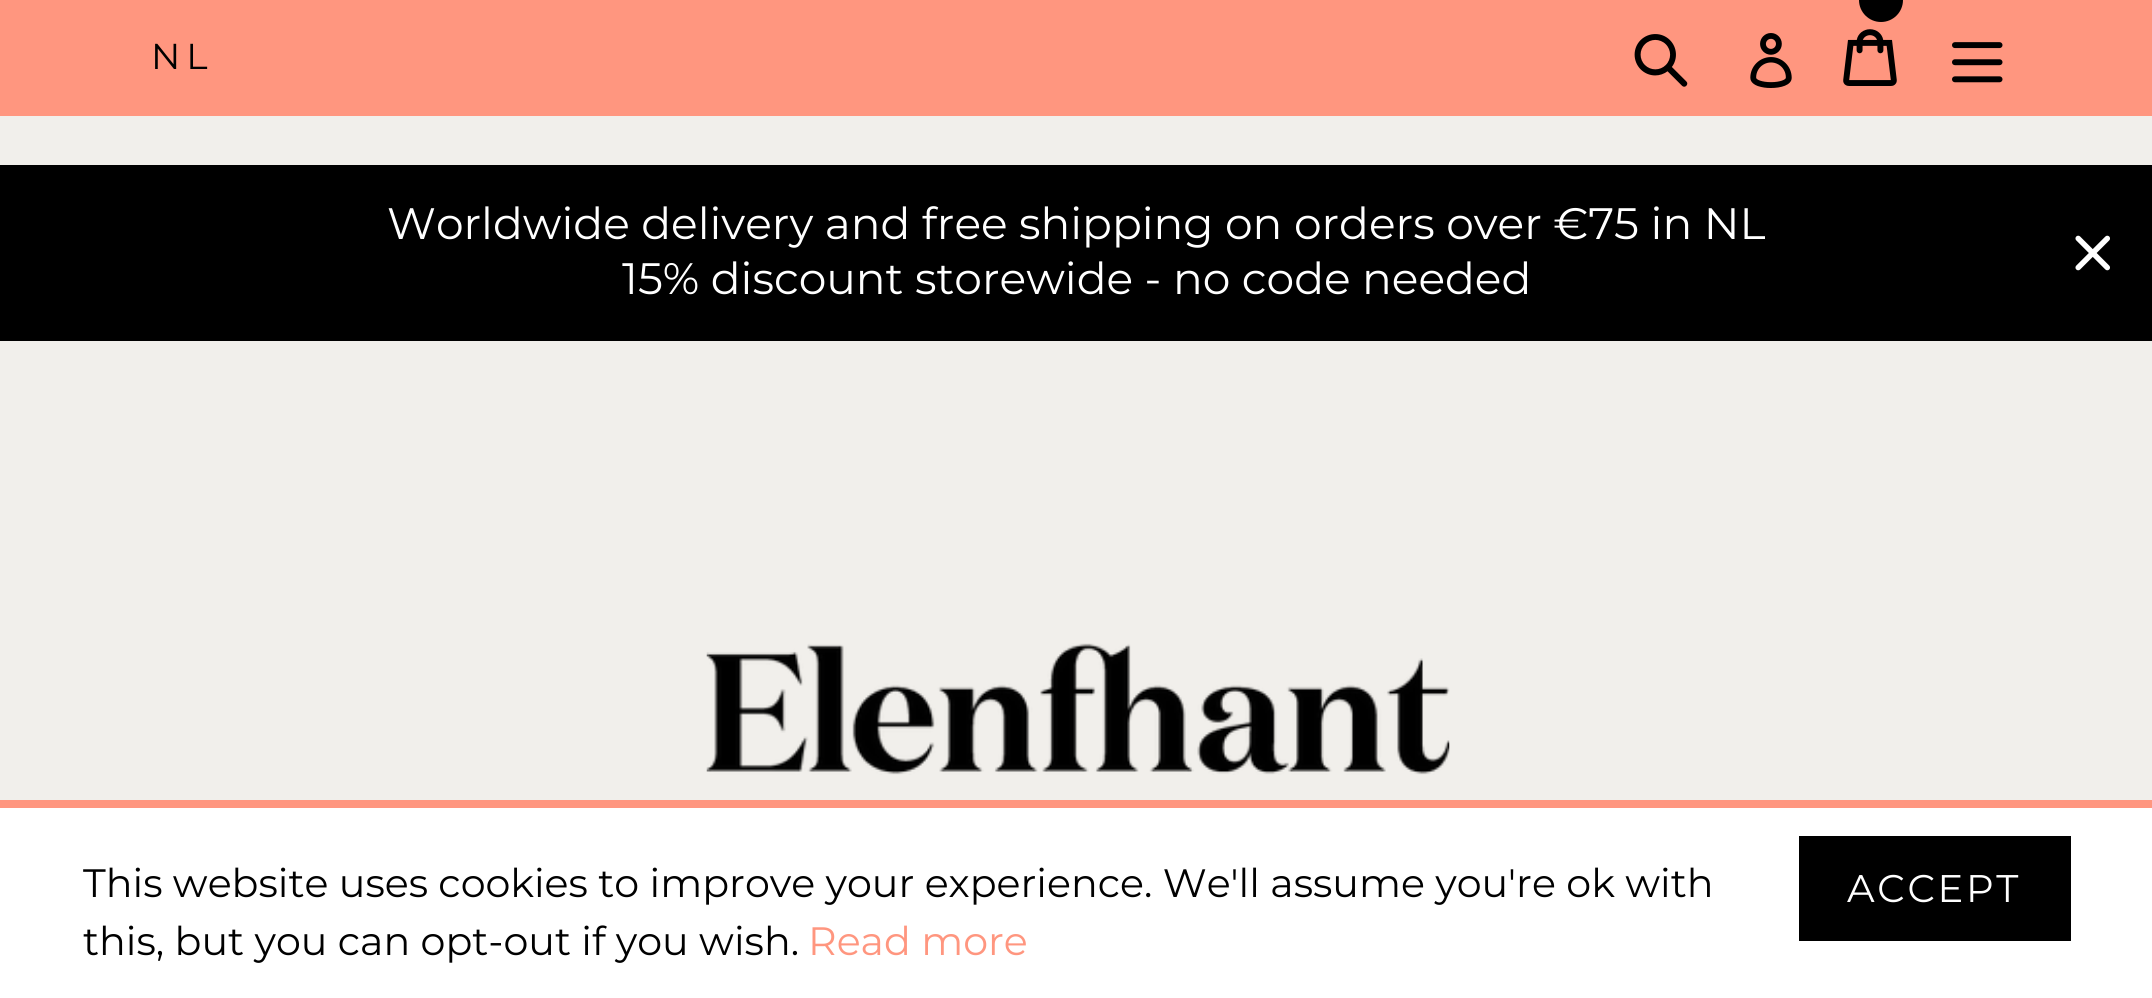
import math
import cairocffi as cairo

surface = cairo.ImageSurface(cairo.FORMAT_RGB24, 2152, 998)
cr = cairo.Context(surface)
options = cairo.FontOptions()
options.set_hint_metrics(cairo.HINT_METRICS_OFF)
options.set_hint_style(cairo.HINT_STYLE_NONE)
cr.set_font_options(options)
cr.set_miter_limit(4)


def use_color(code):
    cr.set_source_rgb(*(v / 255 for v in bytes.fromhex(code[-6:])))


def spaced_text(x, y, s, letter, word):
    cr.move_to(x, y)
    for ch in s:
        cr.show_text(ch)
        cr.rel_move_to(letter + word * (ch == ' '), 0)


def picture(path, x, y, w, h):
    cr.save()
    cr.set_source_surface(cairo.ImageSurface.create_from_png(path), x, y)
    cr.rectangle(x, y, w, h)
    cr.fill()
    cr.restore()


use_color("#f1efeb")
cr.paint()
use_color("#ff967f")
cr.rectangle(0, 0, 2152, 116)
cr.fill()
cr.select_font_face("Montserrat")
cr.set_font_size(36)
use_color("#000000")
spaced_text(151, 69, "NL", 6, 0)
picture("img1.png", 1634, 34, 54, 53)
picture("img2.png", 1750, 33, 42, 55)
cr.arc(1881, 0, 22, 0, 2 * math.pi)
cr.fill()
picture("img3.png", 1843, 29, 54, 57)
picture("img4.png", 1952, 42, 51, 41)
picture("img5.png", 706, 643, 744, 132)
cr.rectangle(0, 165, 2152, 176)
cr.fill()
cr.set_font_size(44)
use_color("#ffffff")
cr.move_to(387, 239)
cr.show_text("Worldwide delivery and free shipping on orders over €75 in NL")
cr.move_to(622, 294)
cr.show_text("15% discount storewide - no code needed")
picture("img6.png", 2075, 235, 35, 36)
cr.rectangle(0, 808, 2152, 190)
cr.fill()
use_color("#ff967f")
cr.rectangle(0, 800, 2152, 8)
cr.fill()
cr.set_font_size(39.6)
use_color("#000000")
cr.move_to(83, 897)
cr.show_text("This website uses cookies to improve your experience. We'll assume you're ok with")
cr.move_to(83, 955)
cr.show_text("this, but you can opt-out if you wish.")
use_color("#ff967f")
cr.move_to(808, 955)
cr.show_text("Read more")
use_color("#000000")
cr.rectangle(1799, 836, 272, 105)
cr.fill()
cr.set_font_size(38.5)
use_color("#ffffff")
spaced_text(1847, 902, "ACCEPT", 2.75, 0)
surface.write_to_png("result.png")
